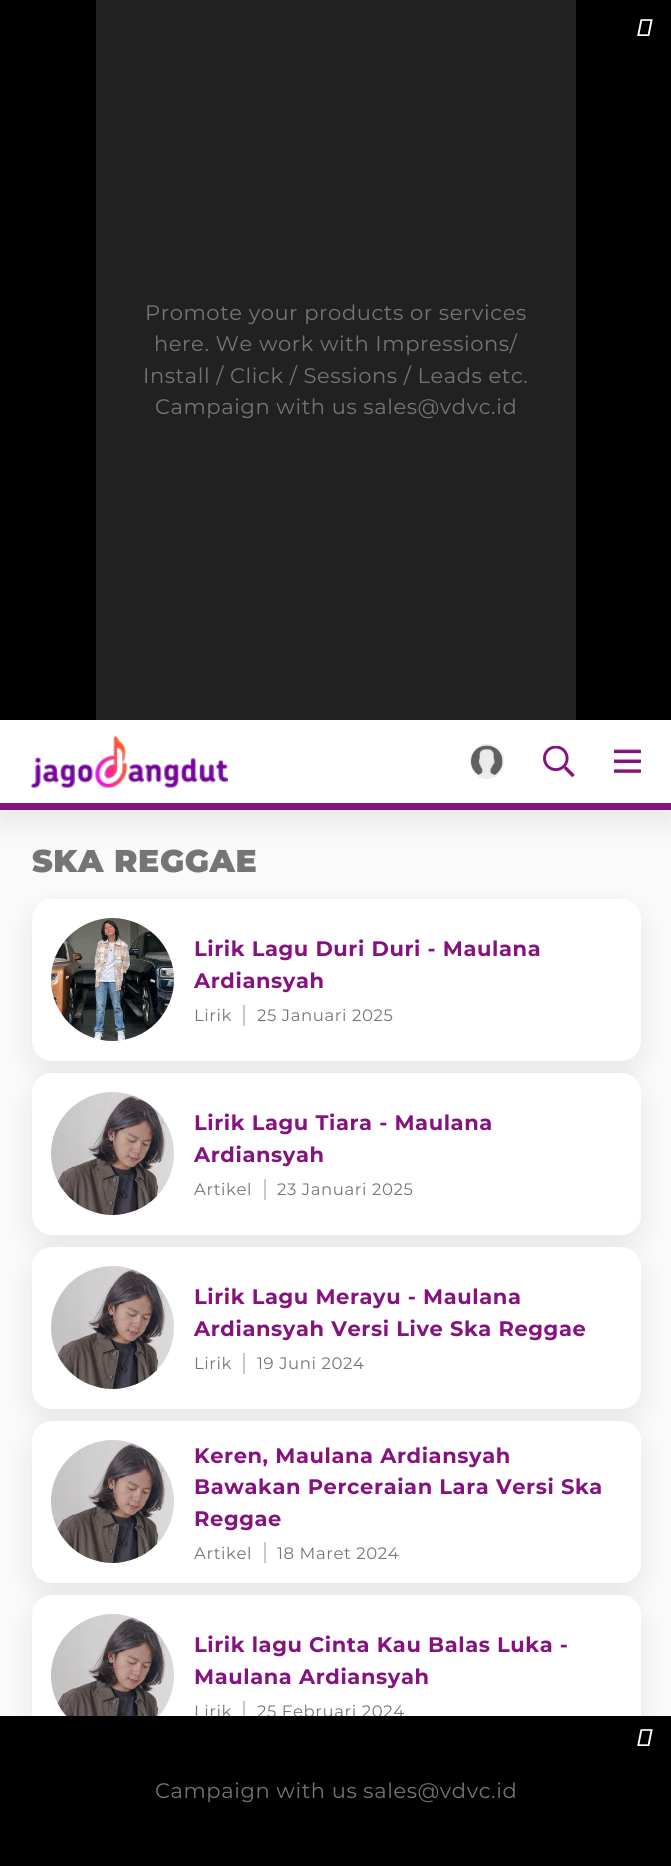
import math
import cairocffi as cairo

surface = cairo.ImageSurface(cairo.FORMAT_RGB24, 671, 1866)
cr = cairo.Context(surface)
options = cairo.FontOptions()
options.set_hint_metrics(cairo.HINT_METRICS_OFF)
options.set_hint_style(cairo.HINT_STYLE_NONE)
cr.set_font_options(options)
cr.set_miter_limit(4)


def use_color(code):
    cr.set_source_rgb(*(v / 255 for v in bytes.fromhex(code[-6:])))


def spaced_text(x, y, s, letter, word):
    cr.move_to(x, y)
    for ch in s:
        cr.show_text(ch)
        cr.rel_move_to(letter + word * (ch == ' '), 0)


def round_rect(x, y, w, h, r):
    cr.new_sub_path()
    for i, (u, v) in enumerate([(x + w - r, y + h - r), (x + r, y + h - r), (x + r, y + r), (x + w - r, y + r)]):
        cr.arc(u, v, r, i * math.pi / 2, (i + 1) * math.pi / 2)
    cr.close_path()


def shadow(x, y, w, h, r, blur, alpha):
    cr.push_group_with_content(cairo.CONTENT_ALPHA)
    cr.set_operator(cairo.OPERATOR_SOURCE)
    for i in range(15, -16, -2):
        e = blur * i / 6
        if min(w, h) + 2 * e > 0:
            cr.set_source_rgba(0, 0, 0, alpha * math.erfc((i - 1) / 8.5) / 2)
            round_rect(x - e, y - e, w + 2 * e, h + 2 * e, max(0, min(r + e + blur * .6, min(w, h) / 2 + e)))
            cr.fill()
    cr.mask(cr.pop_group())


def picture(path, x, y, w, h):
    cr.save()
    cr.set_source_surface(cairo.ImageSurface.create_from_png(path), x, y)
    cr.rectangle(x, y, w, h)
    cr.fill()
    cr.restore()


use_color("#fafafa")
cr.paint()
use_color("#000000")
shadow(0, 732, 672, 90, 0, 16, 0.08)
use_color("#000000")
cr.rectangle(0, 0, 671, 720)
cr.fill()
picture("img1.png", 637, 19, 16, 17)
use_color("#212121")
cr.rectangle(96, 0, 480, 720)
cr.fill()
cr.select_font_face("Montserrat")
cr.set_font_size(21)
use_color("#757575")
spaced_text(145, 320, "Promote your products or services", 0.6, 0)
spaced_text(154, 351, "here. We work with Impressions/", 0.6, 0)
spaced_text(143, 383, "Install / Click / Sessions / Leads etc.", 0.6, 0)
spaced_text(155, 414, "Campaign with us sales@vdvc.id", 0.6, 0)
use_color("#ffffff")
cr.rectangle(0, 720, 671, 83)
cr.fill()
use_color("#86127f")
cr.rectangle(0, 803, 671, 7)
cr.fill()
picture("img2.png", 31, 736, 197, 52)
round_rect(471, 745, 32, 33, 16)
use_color("#ebebeb")
cr.stroke()
picture("img3.png", 471, 745, 32, 32)
picture("img4.png", 543, 746, 32, 31)
picture("img5.png", 614, 749, 27, 24)
cr.select_font_face("Montserrat Black")
cr.set_font_size(31.5)
use_color("#757575")
spaced_text(32, 872, "SKA REGGAE", 0.6, 0)
use_color("#000000")
shadow(32, 911, 609, 162, 20, 16, 0.08)
use_color("#ffffff")
round_rect(32, 899, 609, 162, 20)
cr.fill()
use_color("#000000")
shadow(32, 1085, 609, 162, 20, 16, 0.08)
picture("img6.png", 51, 918, 123, 123)
cr.select_font_face("Montserrat", cairo.FONT_SLANT_NORMAL, cairo.FONT_WEIGHT_BOLD)
cr.set_font_size(21)
use_color("#86127f")
spaced_text(194, 956, "Lirik Lagu Duri Duri - Maulana", 0.6, 0)
spaced_text(194, 988, "Ardiansyah", 0.6, 0)
use_color("#c9c9c9")
cr.rectangle(243, 1005, 2, 21)
cr.fill()
cr.select_font_face("Montserrat")
cr.set_font_size(16.5)
use_color("#757575")
spaced_text(194, 1021, "Lirik", 0.6, 0)
spaced_text(257, 1021, "25 Januari 2025", 0.6, 0)
use_color("#ffffff")
round_rect(32, 1073, 609, 162, 20)
cr.fill()
use_color("#000000")
shadow(32, 1259, 609, 162, 20, 16, 0.08)
picture("img7.png", 51, 1092, 123, 123)
cr.select_font_face("Montserrat", cairo.FONT_SLANT_NORMAL, cairo.FONT_WEIGHT_BOLD)
cr.set_font_size(21)
use_color("#86127f")
spaced_text(194, 1130, "Lirik Lagu Tiara - Maulana", 0.6, 0)
spaced_text(194, 1162, "Ardiansyah", 0.6, 0)
use_color("#c9c9c9")
cr.rectangle(264, 1179, 2, 21)
cr.fill()
cr.select_font_face("Montserrat")
cr.set_font_size(16.5)
use_color("#757575")
spaced_text(194, 1195, "Artikel", 0.6, 0)
spaced_text(277, 1195, "23 Januari 2025", 0.6, 0)
use_color("#ffffff")
round_rect(32, 1247, 609, 162, 20)
cr.fill()
use_color("#000000")
shadow(32, 1433, 609, 162, 20, 16, 0.08)
picture("img8.png", 51, 1266, 123, 123)
cr.select_font_face("Montserrat", cairo.FONT_SLANT_NORMAL, cairo.FONT_WEIGHT_BOLD)
cr.set_font_size(21)
use_color("#86127f")
spaced_text(194, 1304, "Lirik Lagu Merayu - Maulana", 0.6, 0)
spaced_text(194, 1336, "Ardiansyah Versi Live Ska Reggae", 0.6, 0)
use_color("#c9c9c9")
cr.rectangle(243, 1353, 2, 21)
cr.fill()
cr.select_font_face("Montserrat")
cr.set_font_size(16.5)
use_color("#757575")
spaced_text(194, 1369, "Lirik", 0.6, 0)
spaced_text(257, 1369, "19 Juni 2024", 0.6, 0)
use_color("#ffffff")
round_rect(32, 1421, 609, 162, 20)
cr.fill()
use_color("#c9c9c9")
cr.rectangle(264, 1542, 2, 21)
cr.fill()
use_color("#000000")
shadow(32, 1607, 609, 162, 20, 16, 0.08)
picture("img7.png", 51, 1440, 123, 123)
cr.select_font_face("Montserrat", cairo.FONT_SLANT_NORMAL, cairo.FONT_WEIGHT_BOLD)
cr.set_font_size(21)
use_color("#86127f")
spaced_text(194, 1463, "Keren, Maulana Ardiansyah", 0.6, 0)
spaced_text(194, 1494, "Bawakan Perceraian Lara Versi Ska", 0.6, 0)
spaced_text(194, 1526, "Reggae", 0.6, 0)
cr.select_font_face("Montserrat")
cr.set_font_size(16.5)
use_color("#757575")
spaced_text(194, 1559, "Artikel", 0.6, 0)
spaced_text(277, 1559, "18 Maret 2024", 0.6, 0)
use_color("#ffffff")
round_rect(32, 1595, 609, 162, 20)
cr.fill()
picture("img9.png", 51, 1614, 123, 102)
cr.select_font_face("Montserrat", cairo.FONT_SLANT_NORMAL, cairo.FONT_WEIGHT_BOLD)
cr.set_font_size(21)
use_color("#86127f")
spaced_text(194, 1652, "Lirik lagu Cinta Kau Balas Luka -", 0.6, 0)
spaced_text(194, 1684, "Maulana Ardiansyah", 0.6, 0)
use_color("#c9c9c9")
cr.rectangle(243, 1701, 2, 21)
cr.fill()
cr.select_font_face("Montserrat")
cr.set_font_size(16.5)
use_color("#757575")
spaced_text(194, 1717, "Lirik", 0.6, 0)
spaced_text(257, 1717, "25 Februari 2024", 0.6, 0)
use_color("#000000")
cr.rectangle(0, 1716, 671, 150)
cr.fill()
picture("img1.png", 637, 1729, 16, 17)
cr.set_font_size(21)
use_color("#757575")
spaced_text(155, 1798, "Campaign with us sales@vdvc.id", 0.6, 0)
surface.write_to_png("result.png")
